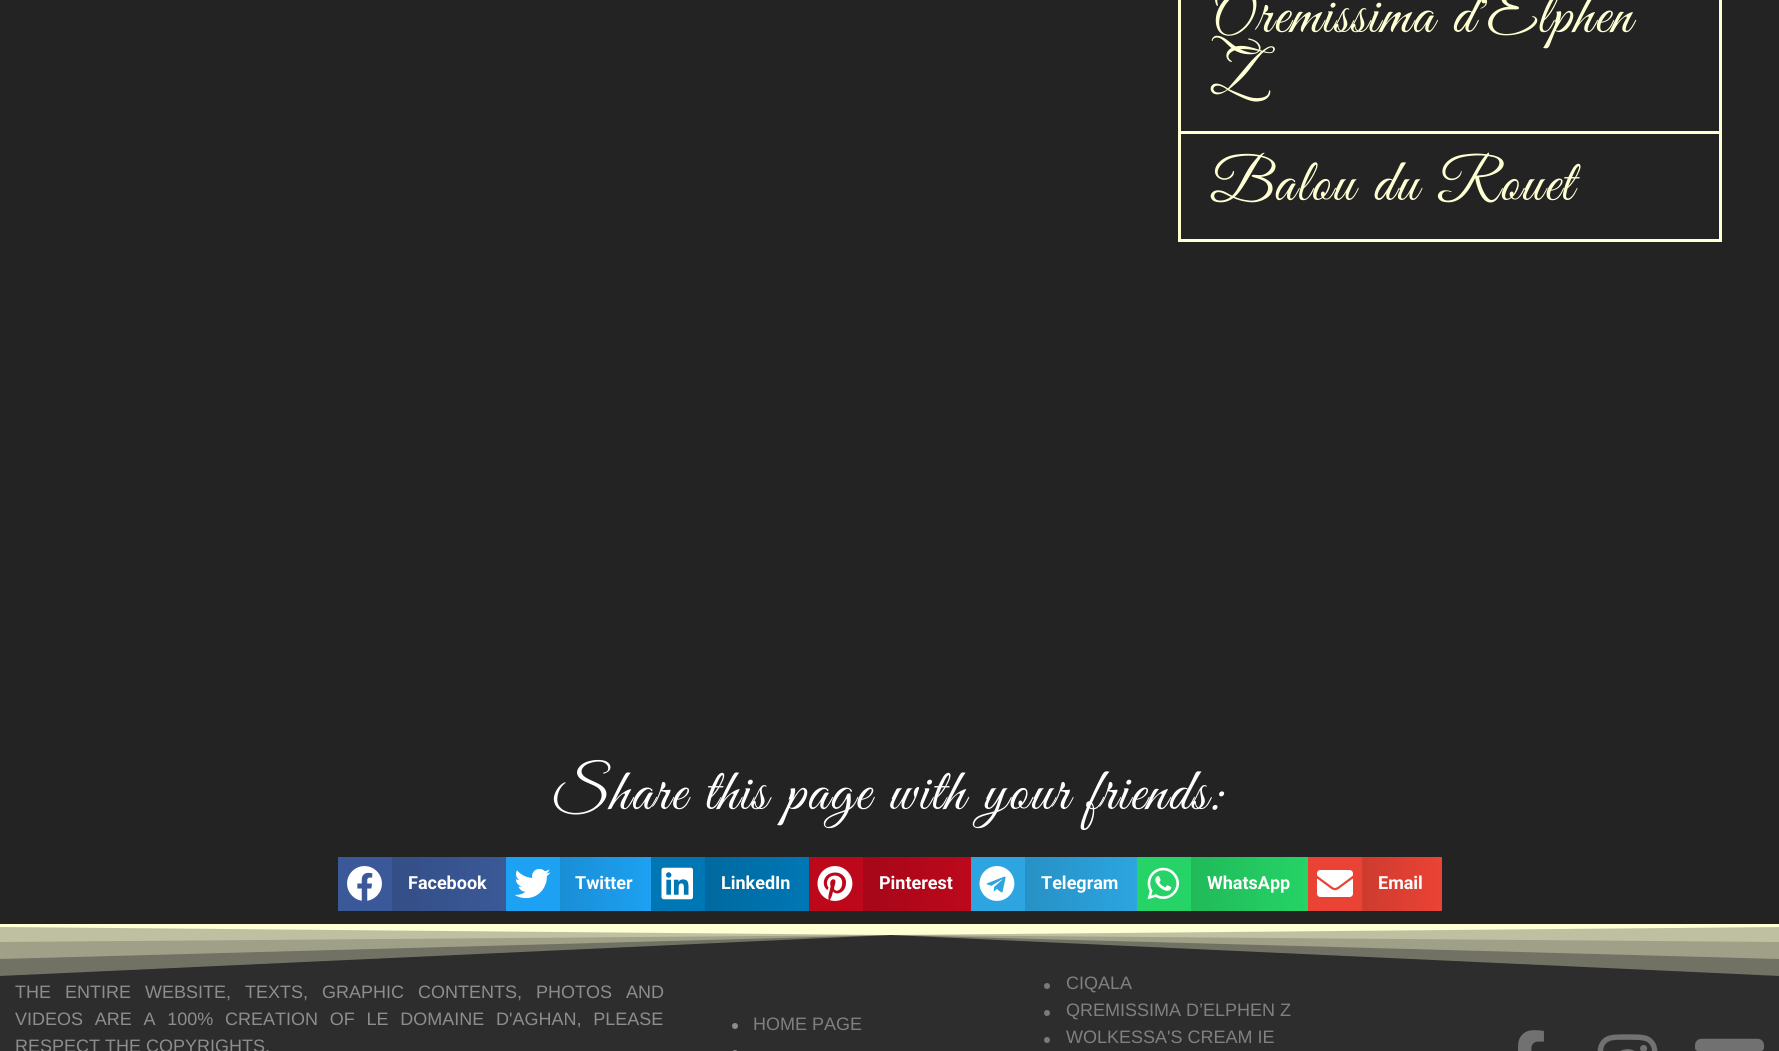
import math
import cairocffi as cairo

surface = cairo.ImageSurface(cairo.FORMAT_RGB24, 1779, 1051)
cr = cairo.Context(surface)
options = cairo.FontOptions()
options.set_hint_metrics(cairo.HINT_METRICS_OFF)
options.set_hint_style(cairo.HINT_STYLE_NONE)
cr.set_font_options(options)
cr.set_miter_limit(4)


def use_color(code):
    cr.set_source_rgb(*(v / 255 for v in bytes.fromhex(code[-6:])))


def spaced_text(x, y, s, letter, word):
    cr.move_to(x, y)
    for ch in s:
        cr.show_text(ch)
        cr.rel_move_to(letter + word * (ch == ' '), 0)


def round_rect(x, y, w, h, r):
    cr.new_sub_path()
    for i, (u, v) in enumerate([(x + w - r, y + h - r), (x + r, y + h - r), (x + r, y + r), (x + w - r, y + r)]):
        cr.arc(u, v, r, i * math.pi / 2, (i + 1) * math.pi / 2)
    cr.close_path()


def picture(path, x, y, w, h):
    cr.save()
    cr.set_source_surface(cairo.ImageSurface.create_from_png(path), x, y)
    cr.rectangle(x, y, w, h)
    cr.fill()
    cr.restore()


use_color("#232323")
cr.paint()
cr.rectangle(1179.5, -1.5, 541, 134)
use_color("#ffffd4")
cr.set_line_width(3)
cr.stroke()
cr.select_font_face("Great Vibes")
cr.set_font_size(60)
spaced_text(1210, 32, "Qremissima d'Elphen", 1.5, 0)
spaced_text(1210, 92, "Z", 1.5, 0)
cr.rectangle(1719, 134, 3, 108)
cr.fill()
cr.rectangle(1178, 239, 544, 3)
cr.fill()
cr.rectangle(1178, 134, 3, 108)
cr.fill()
spaced_text(1210, 200, "Balou du Rouet", 1.5, 0)
use_color("#ffffff")
spaced_text(554, 809, "Share this page with your friends:", 1.5, 0)
use_color("#3b5998")
cr.rectangle(338, 857, 54, 54)
cr.fill()
picture("img1.png", 347, 866, 35, 35)
gradient = cairo.LinearGradient(392, 884, 506, 884)
gradient.add_color_stop_rgba(0, 0.204, 0.306, 0.525, 1)
gradient.add_color_stop_rgba(1, 0.231, 0.349, 0.596, 1)
cr.set_source(gradient)
cr.rectangle(392, 857, 114, 54)
cr.fill()
cr.select_font_face("Roboto", cairo.FONT_SLANT_NORMAL, cairo.FONT_WEIGHT_BOLD)
cr.set_font_size(18)
use_color("#ffffff")
cr.move_to(408, 889)
cr.show_text("Facebook")
use_color("#1da1f2")
cr.rectangle(506, 857, 54, 54)
cr.fill()
picture("img2.png", 514, 868, 37, 31)
gradient = cairo.LinearGradient(560, 884, 651, 884)
gradient.add_color_stop_rgba(0, 0.102, 0.557, 0.835, 1)
gradient.add_color_stop_rgba(1, 0.114, 0.631, 0.949, 1)
cr.set_source(gradient)
cr.rectangle(560, 857, 91, 54)
cr.fill()
use_color("#ffffff")
cr.move_to(575, 889)
cr.show_text("Twitter")
use_color("#0077b5")
cr.rectangle(651, 857, 54, 54)
cr.fill()
picture("img3.png", 661, 867, 32, 33)
gradient = cairo.LinearGradient(705, 884, 809, 884)
gradient.add_color_stop_rgba(0, 0, 0.412, 0.624, 1)
gradient.add_color_stop_rgba(1, 0, 0.467, 0.71, 1)
cr.set_source(gradient)
cr.rectangle(705, 857, 104, 54)
cr.fill()
use_color("#ffffff")
cr.move_to(721, 889)
cr.show_text("LinkedIn")
use_color("#bd081c")
cr.rectangle(809, 857, 54, 54)
cr.fill()
picture("img4.png", 817, 866, 36, 35)
gradient = cairo.LinearGradient(863, 884, 971, 884)
gradient.add_color_stop_rgba(0, 0.651, 0.027, 0.098, 1)
gradient.add_color_stop_rgba(1, 0.741, 0.031, 0.11, 1)
cr.set_source(gradient)
cr.rectangle(863, 857, 108, 54)
cr.fill()
use_color("#ffffff")
cr.move_to(879, 889)
cr.show_text("Pinterest")
use_color("#2ca5e0")
cr.rectangle(971, 857, 54, 54)
cr.fill()
picture("img5.png", 979, 866, 36, 35)
gradient = cairo.LinearGradient(1025, 884, 1137, 884)
gradient.add_color_stop_rgba(0, 0.153, 0.569, 0.773, 1)
gradient.add_color_stop_rgba(1, 0.173, 0.647, 0.878, 1)
cr.set_source(gradient)
cr.rectangle(1025, 857, 112, 54)
cr.fill()
use_color("#ffffff")
cr.move_to(1041, 889)
cr.show_text("Telegram")
use_color("#25d366")
cr.rectangle(1137, 857, 54, 54)
cr.fill()
picture("img6.png", 1147, 867, 32, 33)
gradient = cairo.LinearGradient(1191, 884, 1308, 884)
gradient.add_color_stop_rgba(0, 0.129, 0.729, 0.353, 1)
gradient.add_color_stop_rgba(1, 0.145, 0.827, 0.4, 1)
cr.set_source(gradient)
cr.rectangle(1191, 857, 117, 54)
cr.fill()
use_color("#ffffff")
cr.move_to(1207, 889)
cr.show_text("WhatsApp")
use_color("#ea4335")
cr.rectangle(1308, 857, 54, 54)
cr.fill()
picture("img7.png", 1317, 870, 36, 27)
gradient = cairo.LinearGradient(1362, 884, 1442, 884)
gradient.add_color_stop_rgba(0, 0.808, 0.231, 0.184, 1)
gradient.add_color_stop_rgba(1, 0.918, 0.263, 0.208, 1)
cr.set_source(gradient)
cr.rectangle(1362, 857, 80, 54)
cr.fill()
use_color("#ffffff")
cr.move_to(1378, 889)
cr.show_text("Email")
use_color("#2d2d2d")
cr.rectangle(0, 927, 1779, 124)
cr.fill()
cr.set_source_rgba(1, 1, 0.831, 0.33)
cr.new_path()
cr.move_to(-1, 924)
cr.line_to(-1, 976)
cr.line_to(890, 935)
cr.line_to(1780, 976)
cr.line_to(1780, 924)
cr.close_path()
cr.fill()
cr.new_path()
cr.move_to(-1, 924)
cr.line_to(-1, 959)
cr.line_to(890, 935)
cr.line_to(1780, 959)
cr.line_to(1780, 924)
cr.close_path()
cr.fill()
cr.new_path()
cr.move_to(-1, 924)
cr.line_to(-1, 942)
cr.line_to(890, 935)
cr.line_to(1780, 942)
cr.line_to(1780, 924)
cr.close_path()
cr.fill()
use_color("#ffffd4")
cr.new_path()
cr.move_to(-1, 924)
cr.line_to(-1, 927)
cr.line_to(890, 935)
cr.line_to(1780, 927)
cr.line_to(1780, 924)
cr.close_path()
cr.fill()
cr.select_font_face("Liberation Sans")
use_color("#8d8d8d")
spaced_text(15, 998, "THE ENTIRE WEBSITE, TEXTS, GRAPHIC CONTENTS, PHOTOS AND", 0, 9)
spaced_text(15, 1025, "VIDEOS ARE A 100% CREATION OF LE DOMAINE D'AGHAN, PLEASE", 0, 6.75)
cr.move_to(15, 1052)
cr.show_text("RESPECT THE COPYRIGHTS.")
cr.new_path()
cr.arc(735, 1026, 3, 0, 2 * math.pi)
cr.fill()
use_color("#808080")
cr.move_to(753, 1030)
cr.show_text("HOME PAGE")
use_color("#8d8d8d")
round_rect(732, 1050, 6, 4, 3)
cr.fill()
use_color("#7a7a7a")
cr.arc(1047, 986, 3, 0, 2 * math.pi)
cr.fill()
use_color("#808080")
cr.move_to(1066, 989)
cr.show_text("CIQALA")
use_color("#7a7a7a")
cr.new_path()
cr.arc(1047, 1013, 3, 0, 2 * math.pi)
cr.fill()
use_color("#808080")
cr.move_to(1066, 1016)
cr.show_text("QREMISSIMA D’ELPHEN Z")
use_color("#7a7a7a")
cr.new_path()
cr.arc(1047, 1040, 3, 0, 2 * math.pi)
cr.fill()
use_color("#808080")
cr.move_to(1066, 1043)
cr.show_text("WOLKESSA'S CREAM IE")
picture("img8.png", 1518, 1030, 26, 21)
picture("img9.png", 1597, 1034, 61, 17)
picture("img10.png", 1695, 1038, 69, 13)
surface.write_to_png("result.png")
